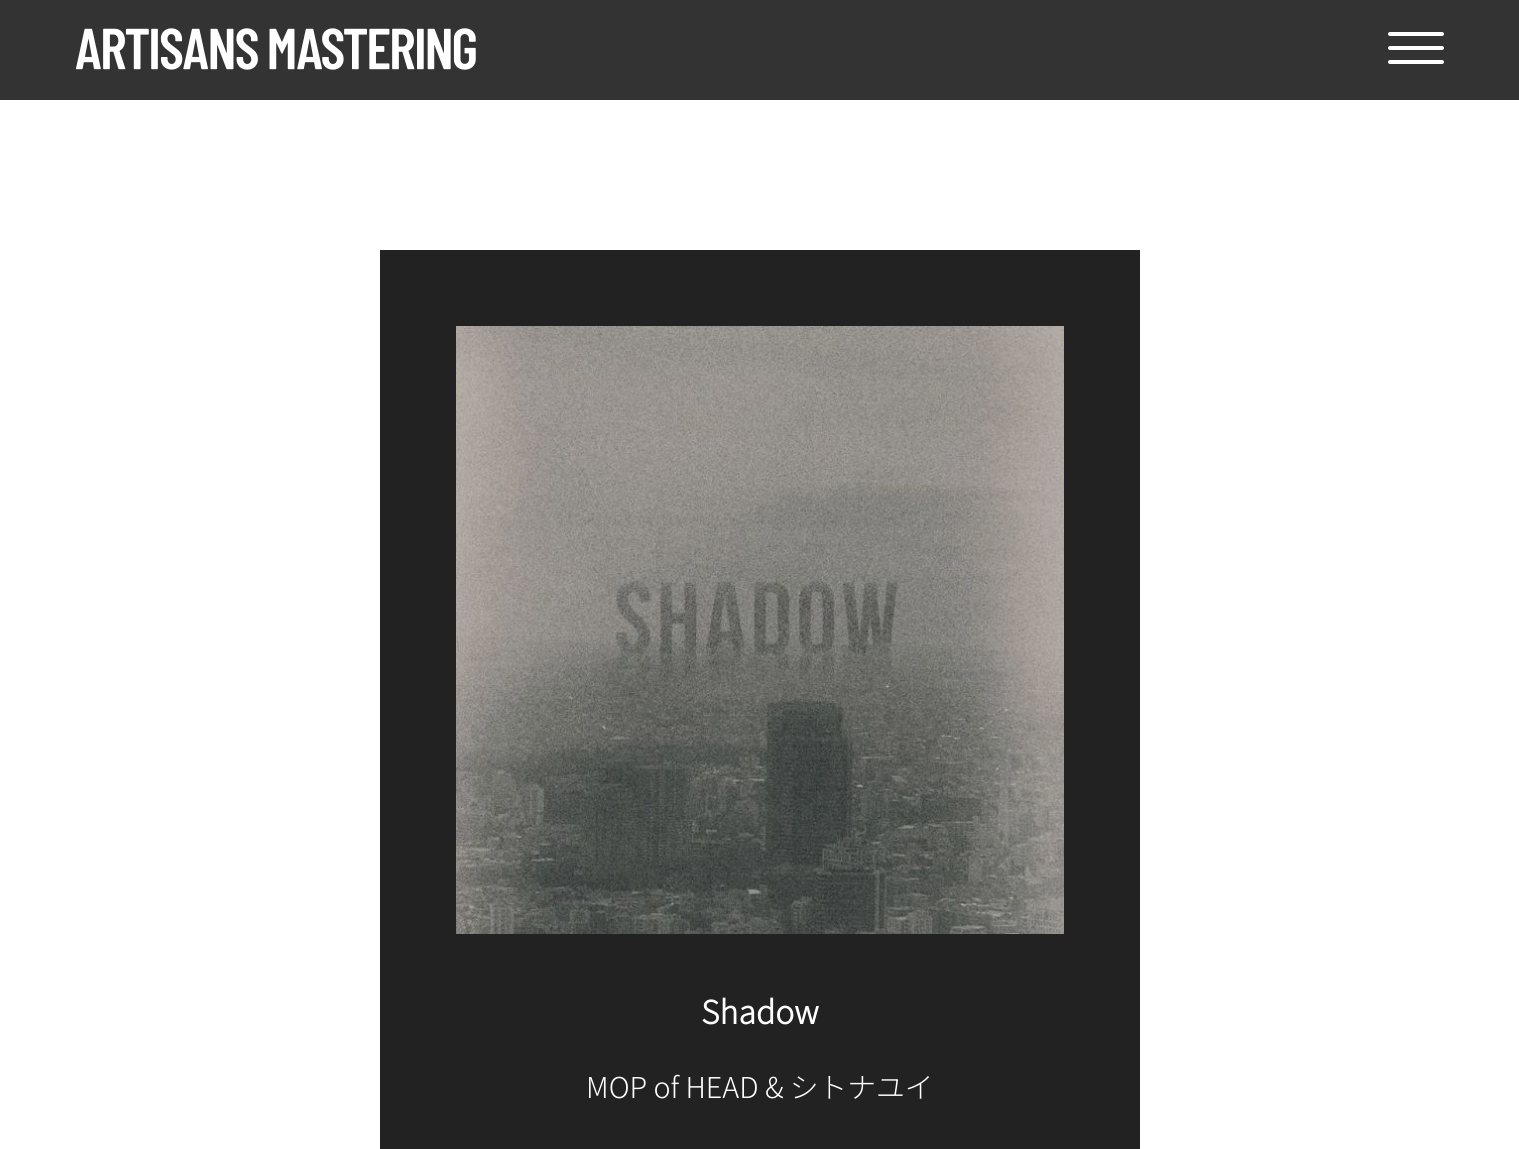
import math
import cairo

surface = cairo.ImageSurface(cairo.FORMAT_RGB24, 1519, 1149)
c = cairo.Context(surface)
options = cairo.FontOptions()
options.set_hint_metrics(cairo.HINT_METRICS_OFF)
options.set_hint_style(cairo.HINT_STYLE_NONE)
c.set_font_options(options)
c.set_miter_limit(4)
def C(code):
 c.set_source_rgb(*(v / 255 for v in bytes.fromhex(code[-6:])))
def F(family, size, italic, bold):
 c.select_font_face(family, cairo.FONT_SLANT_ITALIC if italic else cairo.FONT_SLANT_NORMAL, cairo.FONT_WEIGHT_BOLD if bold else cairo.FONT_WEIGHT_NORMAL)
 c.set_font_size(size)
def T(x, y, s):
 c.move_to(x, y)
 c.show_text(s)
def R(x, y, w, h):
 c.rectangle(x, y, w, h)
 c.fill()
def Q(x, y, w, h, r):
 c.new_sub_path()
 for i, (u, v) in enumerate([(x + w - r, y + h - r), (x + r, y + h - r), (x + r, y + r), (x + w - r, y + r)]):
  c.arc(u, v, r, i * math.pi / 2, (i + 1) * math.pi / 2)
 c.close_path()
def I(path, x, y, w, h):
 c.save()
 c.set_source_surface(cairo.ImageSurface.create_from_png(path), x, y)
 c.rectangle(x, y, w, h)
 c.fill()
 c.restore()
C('ffffff')
c.paint()
C('333333')
R(0,0,1519,100)
I('1.png',76,28,400,42)
C('ffffff')
Q(1388,46,56,4,2)
c.fill()
Q(1388,32,56,4,2)
c.fill()
Q(1388,60,56,4,2)
c.fill()
C('222222')
R(380,250,760,899)
I('2.png',456,326,608,608)
F('Noto Sans JP',32,0,1)
C('ffffff')
T(701,1024,'Shadow')
F('Noto Sans JP Thin',28.75,0,0)
T(586,1098,'MOP of HEAD & シトナユイ')
surface.write_to_png('o.png')
